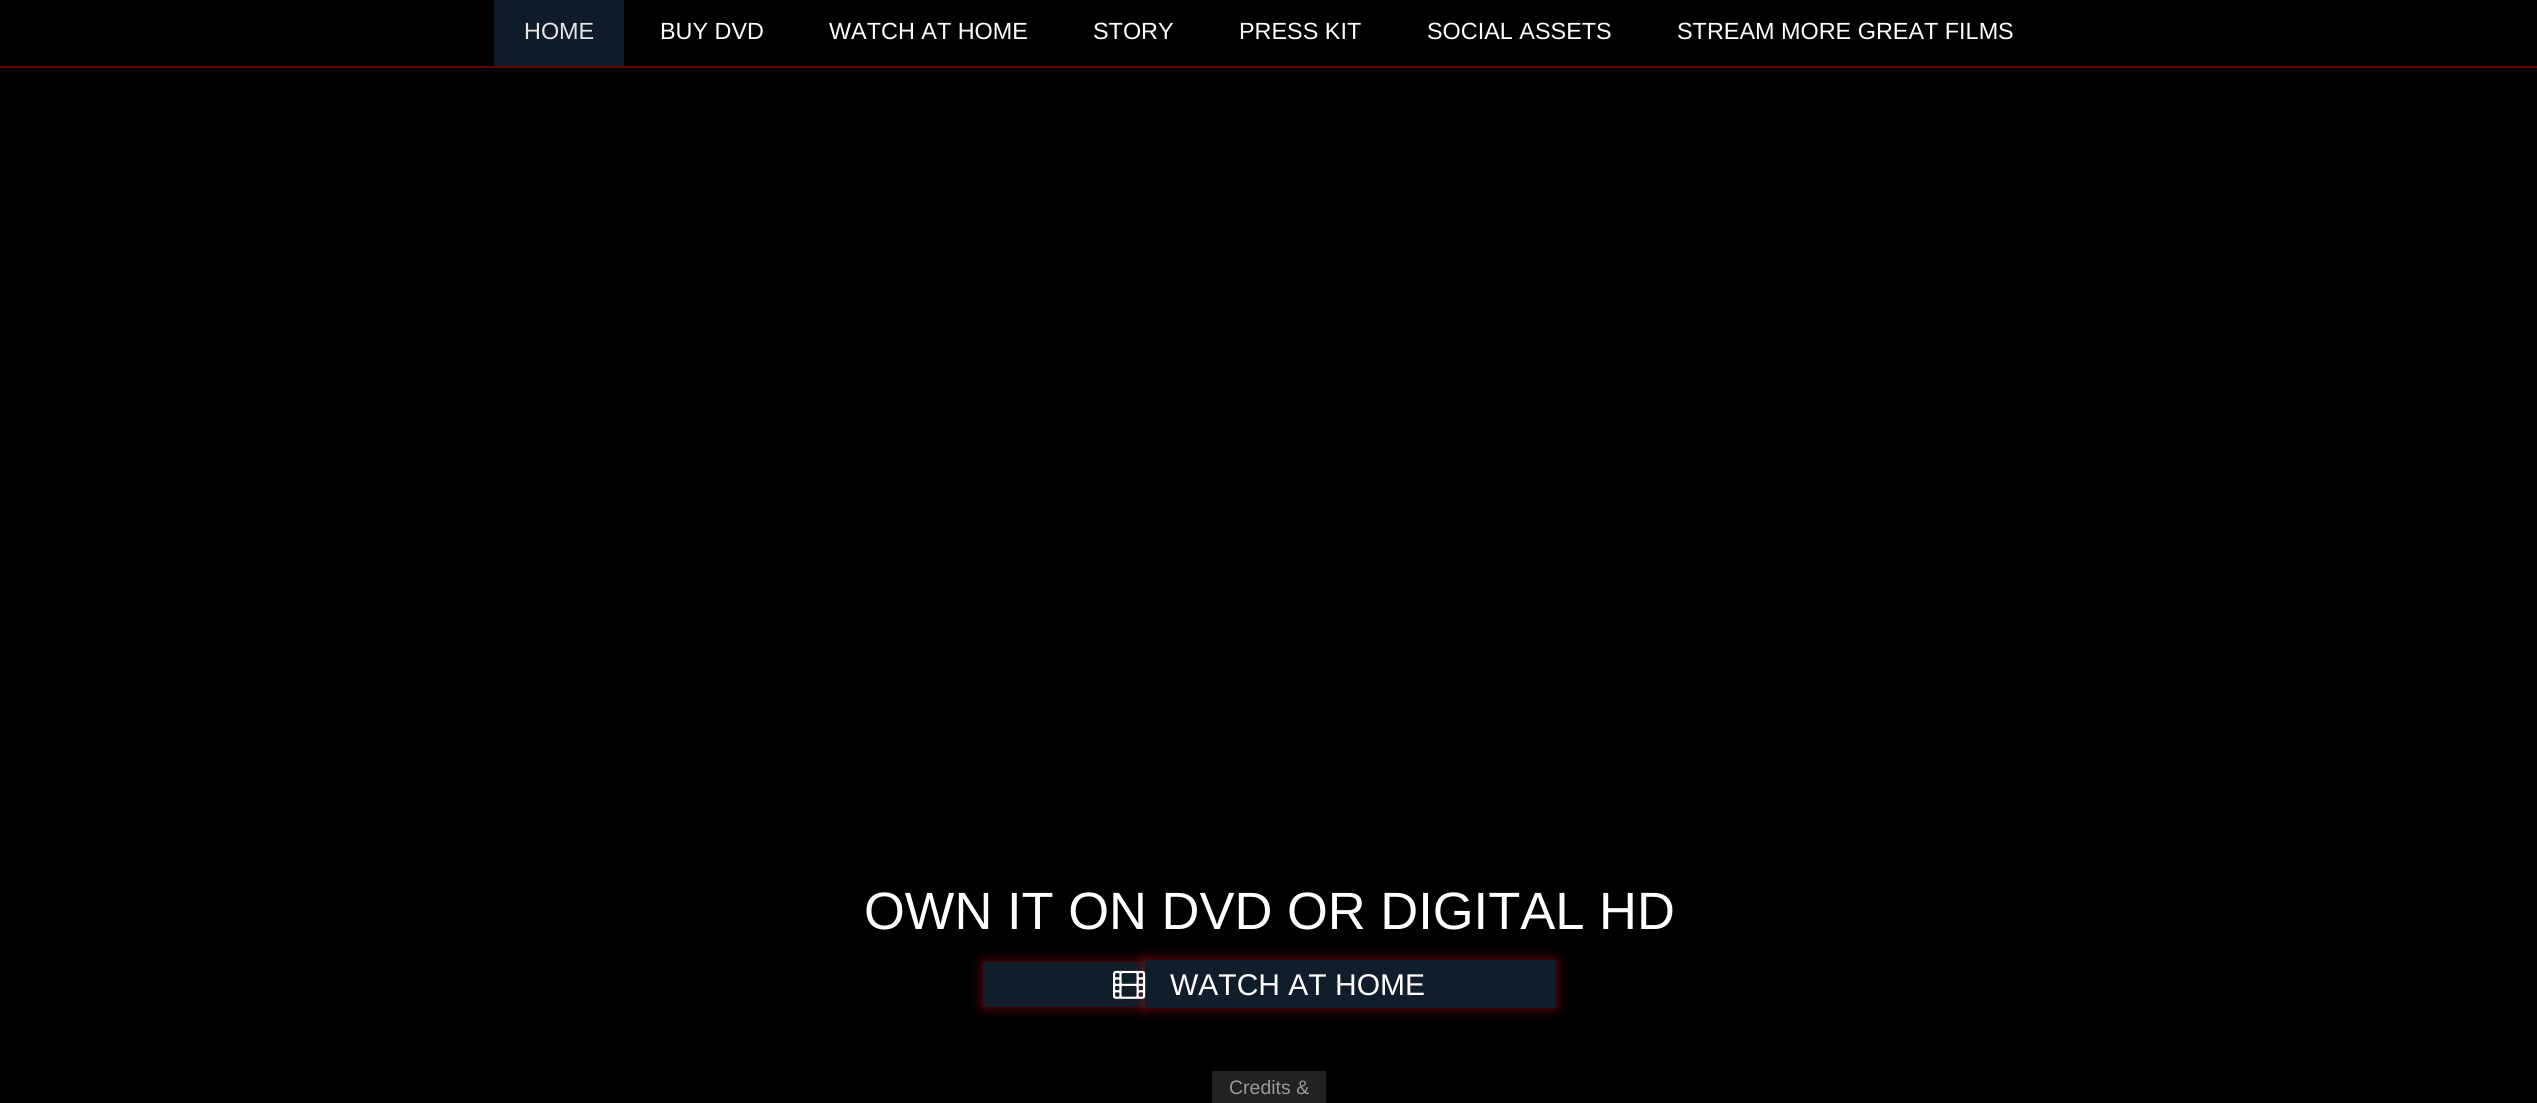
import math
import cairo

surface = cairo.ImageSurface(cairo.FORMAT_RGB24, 2537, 1103)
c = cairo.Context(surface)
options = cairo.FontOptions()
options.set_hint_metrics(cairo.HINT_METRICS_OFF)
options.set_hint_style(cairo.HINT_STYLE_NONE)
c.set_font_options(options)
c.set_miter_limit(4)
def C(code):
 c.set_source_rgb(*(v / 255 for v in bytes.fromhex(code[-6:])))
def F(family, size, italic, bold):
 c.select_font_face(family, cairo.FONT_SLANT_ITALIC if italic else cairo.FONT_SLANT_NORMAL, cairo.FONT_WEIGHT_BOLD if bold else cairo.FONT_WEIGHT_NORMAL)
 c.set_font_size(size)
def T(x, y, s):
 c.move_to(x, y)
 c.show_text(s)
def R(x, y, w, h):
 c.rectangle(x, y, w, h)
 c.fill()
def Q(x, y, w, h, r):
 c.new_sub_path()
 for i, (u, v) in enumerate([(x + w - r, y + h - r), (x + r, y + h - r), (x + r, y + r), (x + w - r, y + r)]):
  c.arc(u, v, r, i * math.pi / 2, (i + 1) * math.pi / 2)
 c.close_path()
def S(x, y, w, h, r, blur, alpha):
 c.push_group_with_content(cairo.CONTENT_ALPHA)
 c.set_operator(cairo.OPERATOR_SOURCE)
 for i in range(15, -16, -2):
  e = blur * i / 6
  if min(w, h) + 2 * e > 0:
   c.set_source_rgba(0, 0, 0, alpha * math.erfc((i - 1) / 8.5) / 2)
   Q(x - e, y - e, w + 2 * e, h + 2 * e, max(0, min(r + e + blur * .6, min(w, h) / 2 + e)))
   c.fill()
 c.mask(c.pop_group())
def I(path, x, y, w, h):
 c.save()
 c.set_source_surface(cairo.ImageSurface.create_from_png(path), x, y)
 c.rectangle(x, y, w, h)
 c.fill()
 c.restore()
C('000000')
c.paint()
C('650508')
R(0,66,2537,2)
C('0e1b28')
R(494,0,130,66)
F('Liberation Sans',23.4,0,0)
C('e6e6e6')
T(524,39,'HOME')
C('ffffff')
T(660,39,'BUY DVD')
T(829,39,'WATCH AT HOME')
T(1093,39,'STORY')
T(1239,39,'PRESS KIT')
T(1427,39,'SOCIAL ASSETS')
T(1677,39,'STREAM MORE GREAT FILMS')
F('Liberation Sans',52.5,0,0)
T(864,929,'OWN IT ON DVD OR DIGITAL HD')
C('c90a10')
S(983,962,162,45,0,6,.6)
C('101d2b')
R(983,962,162,45)
C('c90a10')
S(1145,960,411,48,0,6,.6)
C('101d2b')
R(1145,960,411,48)
I('1.png',1113,970,33,29)
F('Liberation Sans',30,0,0)
C('ffffff')
T(1170,995,'WATCH AT HOME')
C('222222')
R(1212,1071,114,32)
F('Liberation Sans',19.5,0,0)
C('999999')
T(1229,1094,'Credits &')
surface.write_to_png('o.png')
